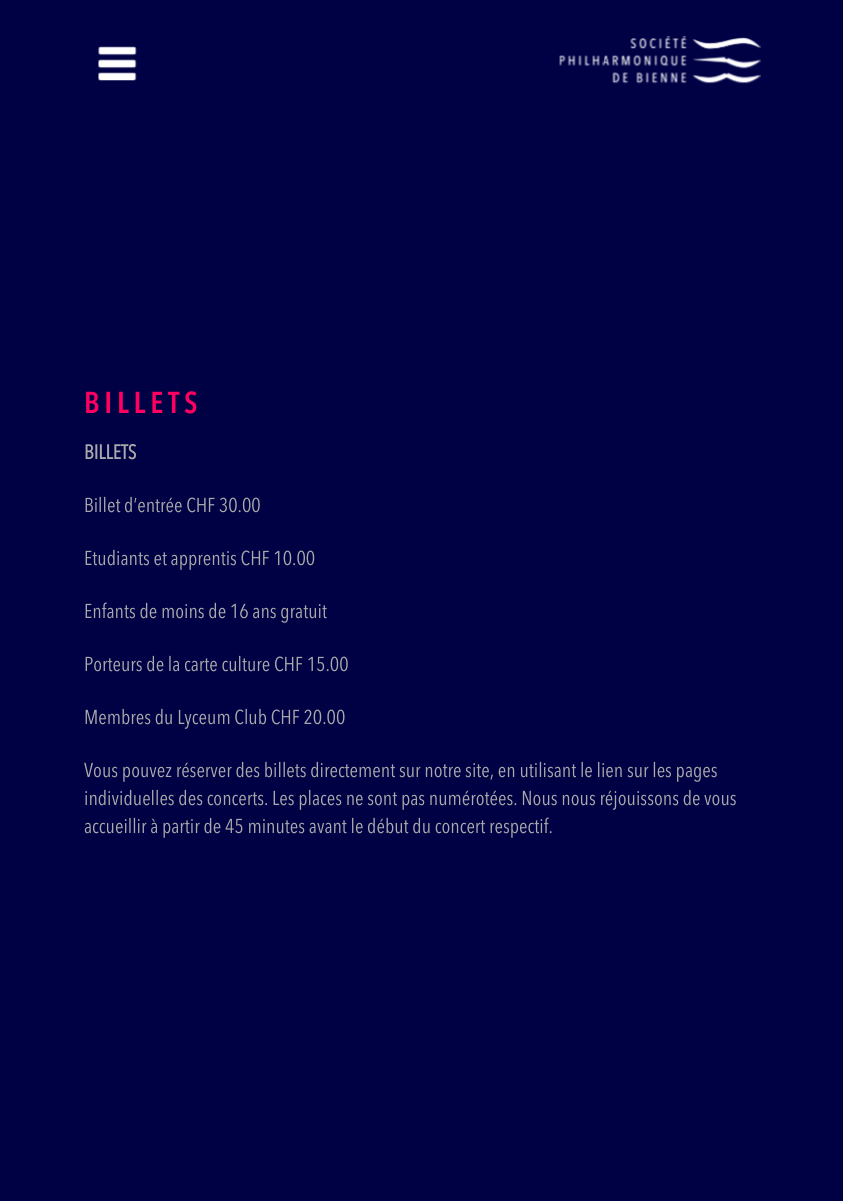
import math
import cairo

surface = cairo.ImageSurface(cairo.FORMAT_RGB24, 843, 1201)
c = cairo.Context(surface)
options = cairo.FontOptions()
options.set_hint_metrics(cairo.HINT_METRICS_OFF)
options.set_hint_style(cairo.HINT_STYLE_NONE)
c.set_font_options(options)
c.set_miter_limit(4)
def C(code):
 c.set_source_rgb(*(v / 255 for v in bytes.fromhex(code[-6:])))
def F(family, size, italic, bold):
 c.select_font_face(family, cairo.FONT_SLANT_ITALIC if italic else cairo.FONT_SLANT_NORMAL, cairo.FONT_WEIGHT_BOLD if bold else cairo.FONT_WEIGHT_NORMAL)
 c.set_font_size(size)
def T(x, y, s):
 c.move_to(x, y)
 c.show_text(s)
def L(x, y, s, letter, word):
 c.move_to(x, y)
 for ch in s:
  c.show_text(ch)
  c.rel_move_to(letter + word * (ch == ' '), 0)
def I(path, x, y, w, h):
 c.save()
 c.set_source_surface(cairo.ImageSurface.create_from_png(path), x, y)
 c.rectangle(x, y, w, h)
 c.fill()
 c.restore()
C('000045')
c.paint()
I('1.png',98,46,39,35)
I('2.png',559,36,202,48)
F('Avenir Next SemiBold',30,0,0)
C('ff0061')
L(84,413,'BILLETS',4.75,0)
F('Avenir Next',20,0,1)
C('aaaaaa')
T(84,459,'BILLETS')
F('Avenir Next',20,0,0)
T(84,512,'Billet d’entrée CHF 30.00')
T(84,565,'Etudiants et apprentis CHF 10.00')
T(84,618,'Enfants de moins de 16 ans gratuit')
T(84,671,'Porteurs de la carte culture CHF 15.00')
T(84,724,'Membres du Lyceum Club CHF 20.00')
T(84,777,'Vous pouvez réserver des billets directement sur notre site, en utilisant le lien sur les pages')
T(84,805,'individuelles des concerts. Les places ne sont pas numérotées. Nous nous réjouissons de vous')
T(84,833,'accueillir à partir de 45 minutes avant le début du concert respectif.')
surface.write_to_png('o.png')
